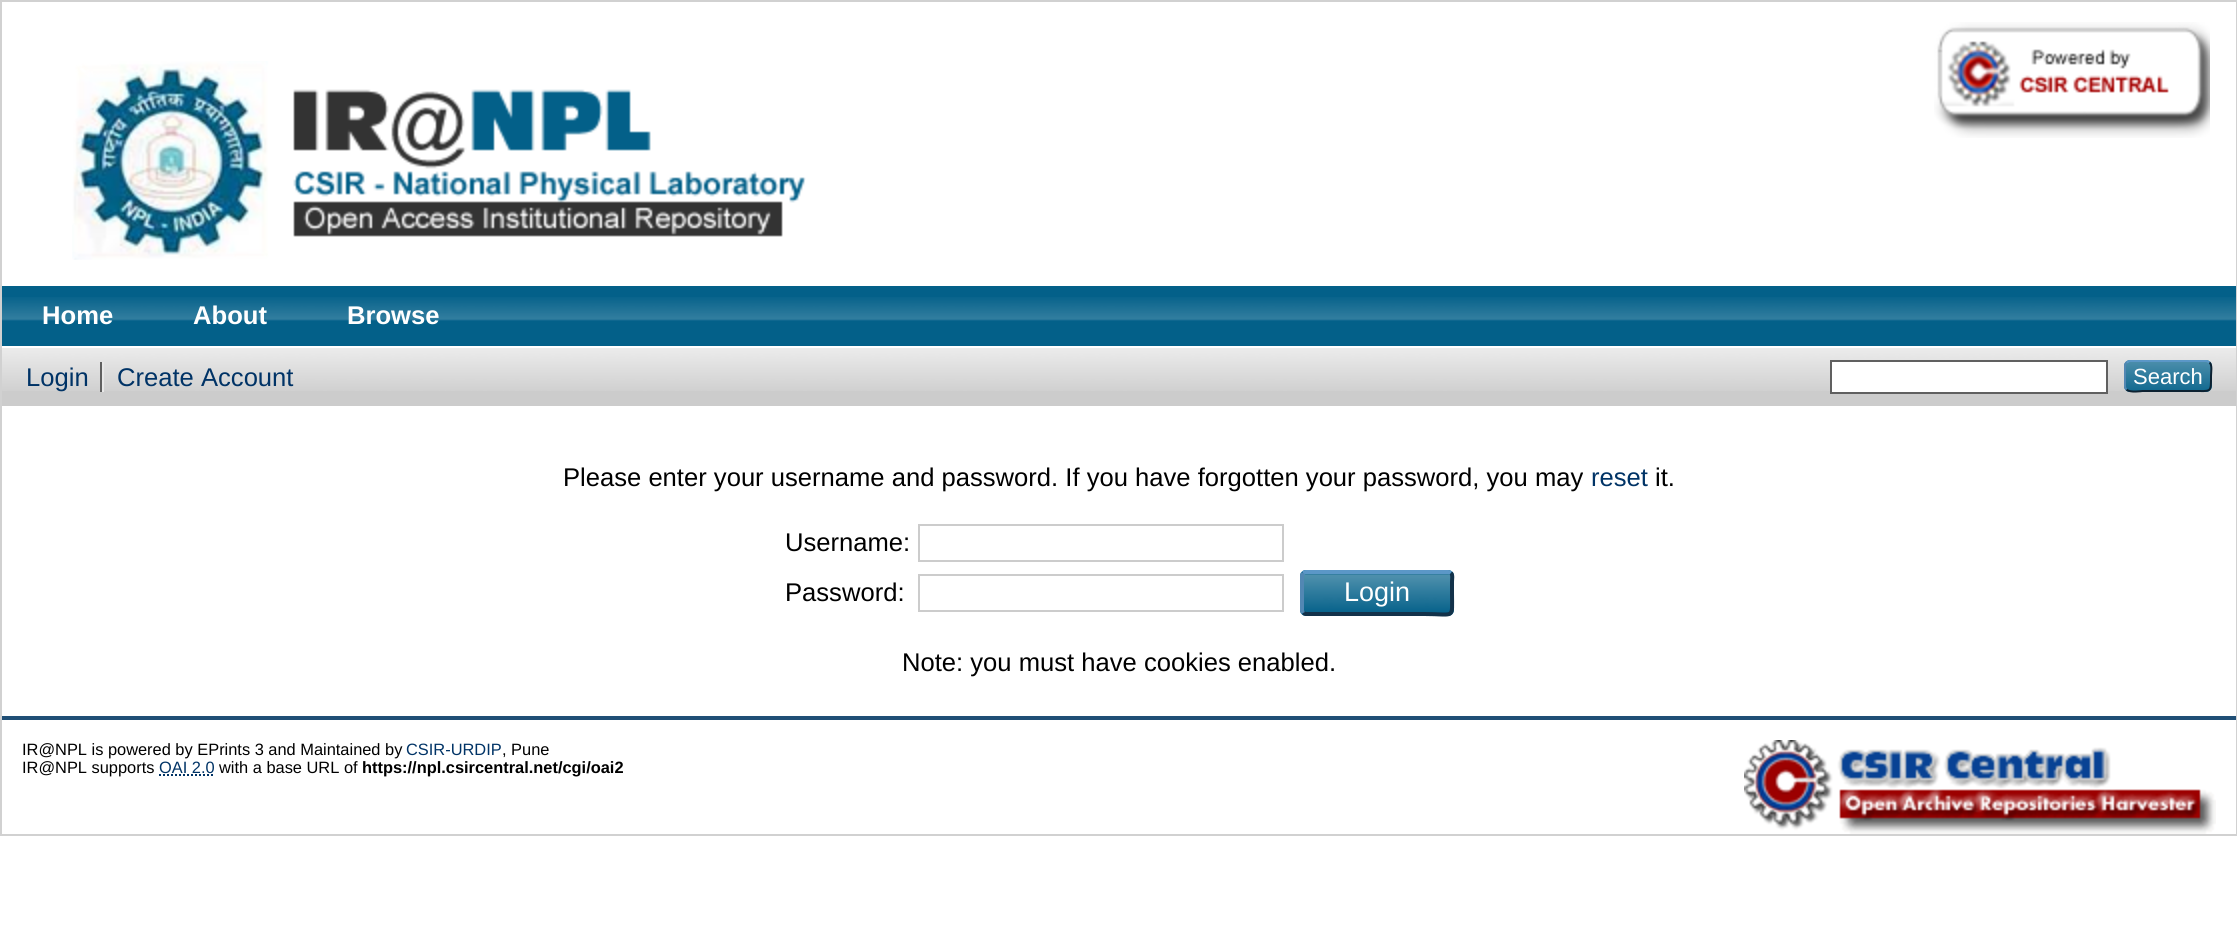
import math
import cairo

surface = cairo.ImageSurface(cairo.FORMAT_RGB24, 2237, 946)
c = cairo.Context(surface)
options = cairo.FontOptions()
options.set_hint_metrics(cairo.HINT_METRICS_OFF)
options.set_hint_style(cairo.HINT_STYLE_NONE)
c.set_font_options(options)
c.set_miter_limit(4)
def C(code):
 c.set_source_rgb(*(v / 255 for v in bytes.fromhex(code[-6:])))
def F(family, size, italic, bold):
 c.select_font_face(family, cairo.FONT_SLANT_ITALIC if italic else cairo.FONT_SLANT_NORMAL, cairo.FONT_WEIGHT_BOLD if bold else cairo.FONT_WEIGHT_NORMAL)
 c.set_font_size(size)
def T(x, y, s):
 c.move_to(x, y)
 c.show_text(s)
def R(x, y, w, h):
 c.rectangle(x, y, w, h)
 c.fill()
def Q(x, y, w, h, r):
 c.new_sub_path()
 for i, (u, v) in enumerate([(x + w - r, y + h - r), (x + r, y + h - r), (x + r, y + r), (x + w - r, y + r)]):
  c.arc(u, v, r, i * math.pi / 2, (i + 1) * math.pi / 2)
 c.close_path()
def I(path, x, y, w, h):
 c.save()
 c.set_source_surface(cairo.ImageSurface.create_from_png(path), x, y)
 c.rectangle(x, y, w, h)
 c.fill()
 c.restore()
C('ffffff')
c.paint()
C('d1d1d1')
R(0,0,2237,2)
R(2236,0,1,836)
R(0,834,2237,2)
R(0,0,2,836)
I('1.png',72,61,734,199)
I('2.png',1934,22,276,116)
C('036089')
R(2,286,2234,60)
I('3.png',2,297,2234,24)
F('Liberation Sans',25.6,0,1)
C('ffffff')
T(42,324,'Home')
T(193,324,'About')
T(347,324,'Browse')
C('cccccc')
R(2,348,2234,58)
I('4.png',2,348,2234,43)
F('Liberation Sans',25.6,0,0)
C('003366')
T(26,386,'Login')
C('606060')
R(100,362,2,30)
C('003366')
T(117,386,'Create Account')
C('e8e8e8')
R(102,362,2,30)
C('ffffff')
c.rectangle(1831,361,276,32)
c.fill_preserve()
C('606060')
c.stroke()
C('036089')
Q(2124,360,88,32,6)
c.fill()
I('5.png',2124,360,88,32)
c.new_path()
c.move_to(2126.5,362.5)
c.line_to(2129.5,361)
c.line_to(2206.5,361)
c.line_to(2209.5,362.5)
C('5b97c7')
c.stroke()
c.new_path()
c.move_to(2209.5,362.5)
c.curve_to(2212.5,365,2211,372.5,2211,376)
c.curve_to(2211,393,2211.5,391,2193.5,391)
c.line_to(2142.5,391)
c.curve_to(2141.5,391,2130,393,2126.5,389.5)
C('0d2131')
c.stroke()
c.new_path()
c.move_to(2126.5,389.5)
c.curve_to(2125.5,388.5,2125,387.5,2125,386)
c.line_to(2125,366)
c.curve_to(2125,364.5,2125.5,363.5,2126.5,362.5)
C('5287b3')
c.stroke()
F('Liberation Sans',22,0,0)
C('ffffff')
T(2133,384,'Search')
F('Liberation Sans',25.6,0,0)
C('000000')
T(563,486,'Please enter your username and password. If you have forgotten your password, you may')
C('003366')
T(1591,486,'reset')
C('000000')
T(1655,486,'it.')
T(785,551,'Username:')
c.rectangle(919,525,364,36)
C('cccccc')
c.stroke()
C('000000')
T(785,601,'Password:')
c.rectangle(919,575,364,36)
C('cccccc')
c.stroke()
C('036089')
Q(1300,570,154,46,6)
c.fill()
I('6.png',1300,573,154,39)
c.new_path()
c.move_to(1303,573)
c.curve_to(1304,572.5,1305,572,1306,572)
c.line_to(1448,572)
c.curve_to(1449,572,1450,572.5,1451,573)
C('5b97c7')
c.set_line_width(4)
c.stroke()
c.new_path()
c.move_to(1451,573)
c.curve_to(1453,575,1452,579.5,1452,581.5)
c.line_to(1452,593)
c.curve_to(1452,620,1455.5,614,1424.5,614)
c.line_to(1306,614)
c.line_to(1303,613)
C('13324a')
c.stroke()
c.new_path()
c.move_to(1303,613)
c.curve_to(1302.5,612,1302,611,1302,610)
c.line_to(1302,576)
c.curve_to(1302,575,1302.5,574,1303,573)
C('5287b3')
c.stroke()
F('Liberation Sans',27,0,0)
C('ffffff')
T(1344,601,'Login')
F('Liberation Sans',25.6,0,0)
C('000000')
T(902,671,'Note: you must have cookies enabled.')
C('204f76')
R(2,716,2234,4)
F('Liberation Sans',16.4,0,0)
C('000000')
T(22,755,'IR@NPL is powered by EPrints 3 and Maintained by')
C('003366')
T(406,755,'CSIR-URDIP')
C('000000')
T(502,755,', Pune')
I('7.png',1744,740,472,94)
T(22,773,'IR@NPL supports')
C('003366')
T(159,773,'OAI 2.0')
c.new_path()
c.move_to(159,775)
c.line_to(214.5,775)
c.set_line_width(2)
c.set_dash([2,2])
c.stroke()
C('000000')
T(219,773,'with a base URL of')
F('Liberation Sans',16.4,0,1)
T(362,773,'https://npl.csircentral.net/cgi/oai2')
surface.write_to_png('o.png')
